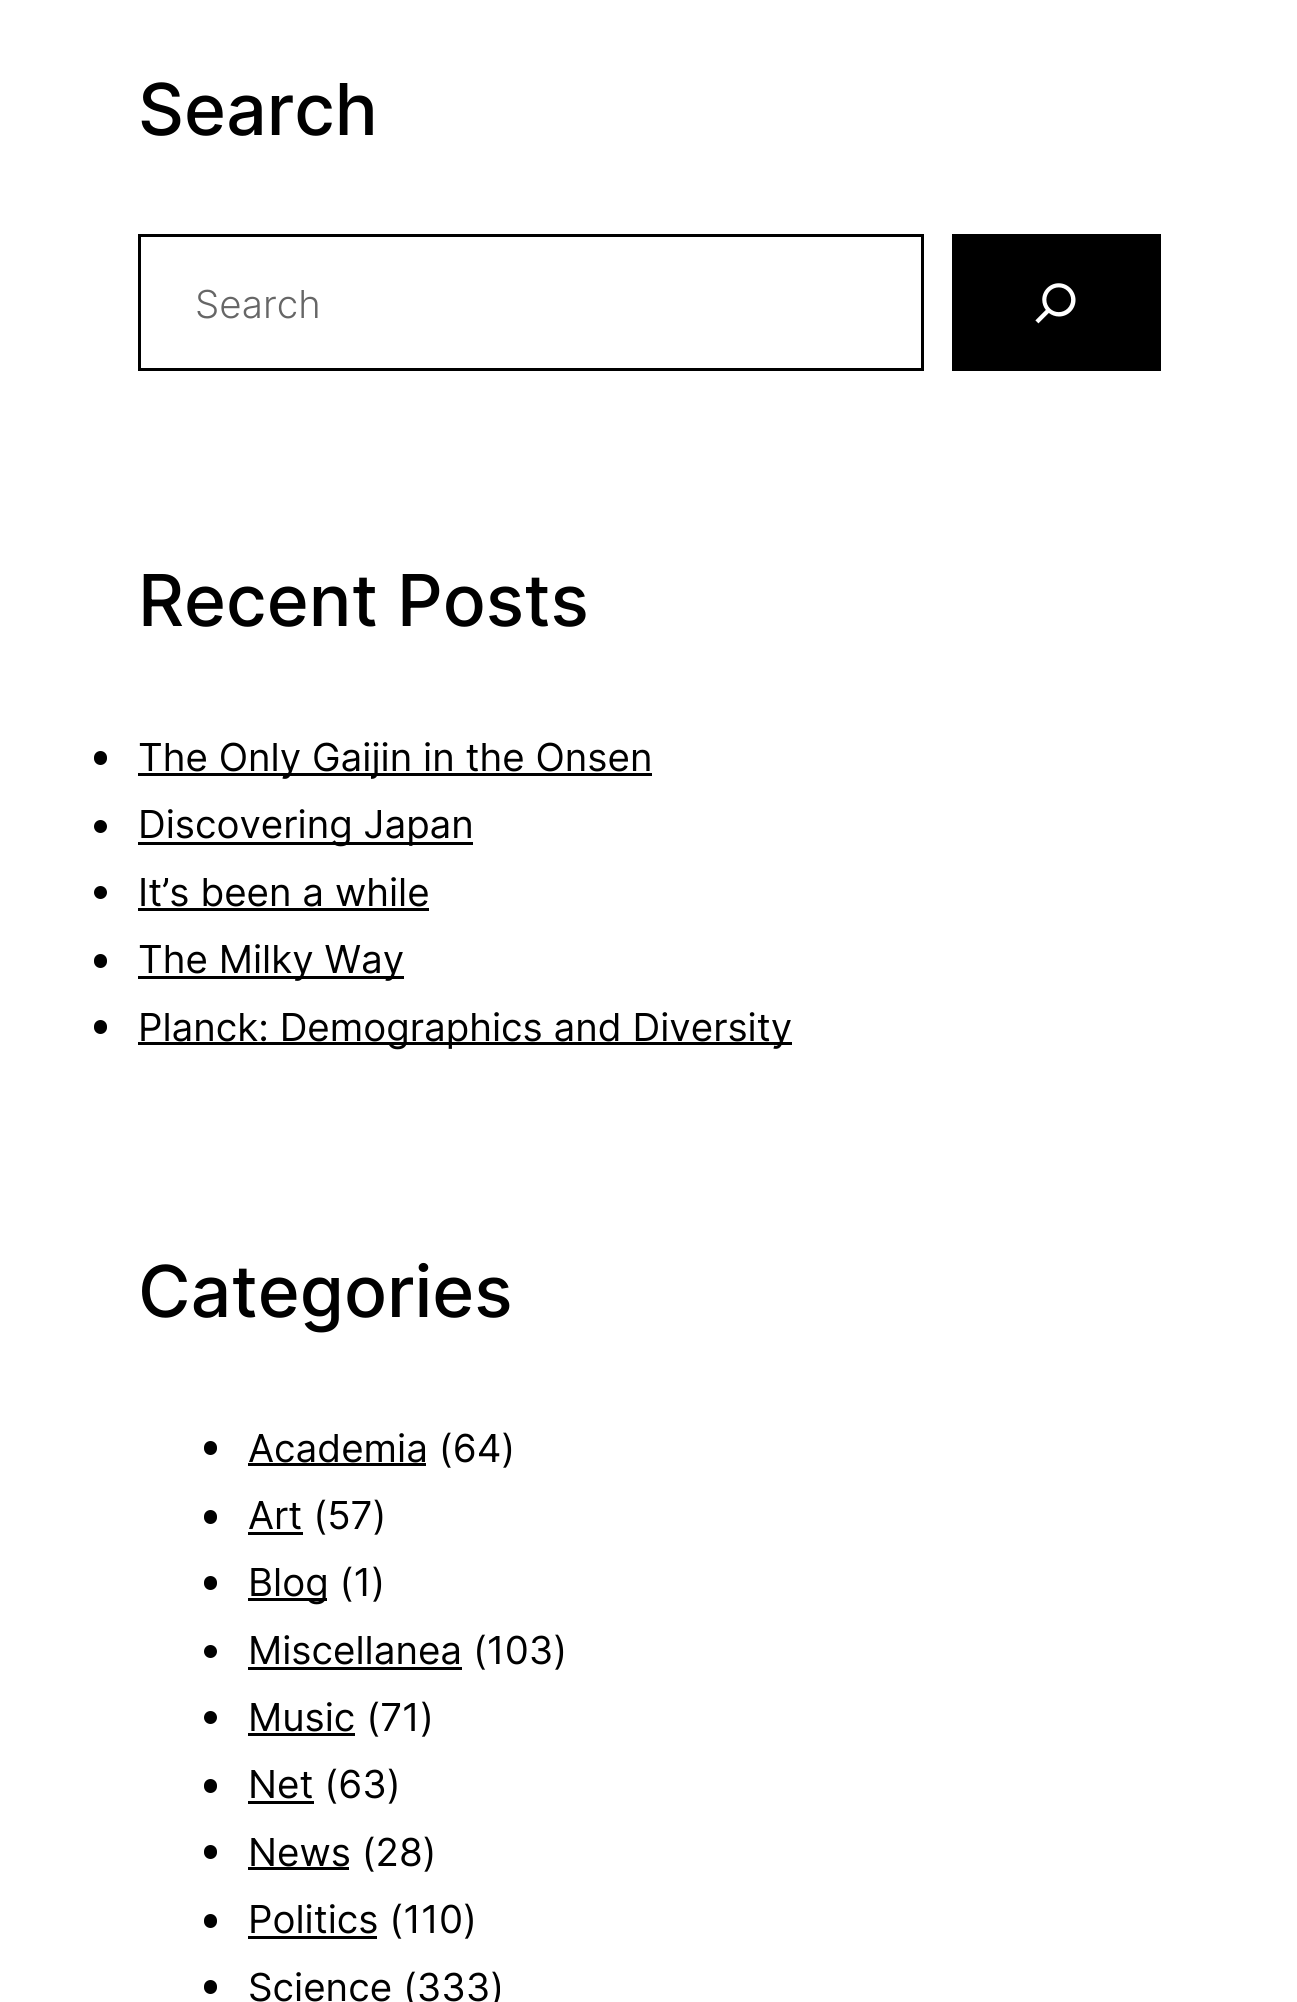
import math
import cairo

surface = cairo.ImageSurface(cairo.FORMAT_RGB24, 1297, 2002)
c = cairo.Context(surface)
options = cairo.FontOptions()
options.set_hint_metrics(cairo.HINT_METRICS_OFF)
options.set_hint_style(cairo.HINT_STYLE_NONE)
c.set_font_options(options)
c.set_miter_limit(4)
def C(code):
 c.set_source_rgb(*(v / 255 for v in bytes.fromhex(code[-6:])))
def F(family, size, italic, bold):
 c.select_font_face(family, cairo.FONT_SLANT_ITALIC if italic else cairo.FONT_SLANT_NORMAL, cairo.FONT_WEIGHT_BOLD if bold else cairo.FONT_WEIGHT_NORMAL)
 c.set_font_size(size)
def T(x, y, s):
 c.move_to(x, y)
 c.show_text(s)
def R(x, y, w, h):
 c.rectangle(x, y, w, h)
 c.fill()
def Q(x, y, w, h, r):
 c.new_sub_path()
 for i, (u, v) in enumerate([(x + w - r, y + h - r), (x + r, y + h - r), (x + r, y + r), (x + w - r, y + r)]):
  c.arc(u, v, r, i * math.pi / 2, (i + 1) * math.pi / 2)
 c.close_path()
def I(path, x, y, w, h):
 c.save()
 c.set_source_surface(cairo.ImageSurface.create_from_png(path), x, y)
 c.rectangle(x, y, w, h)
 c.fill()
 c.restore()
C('ffffff')
c.paint()
F('Inter Medium',71.5,0,0)
C('000000')
T(138,135,'Search')
c.rectangle(139.5,235.5,783,134)
c.set_line_width(3)
c.stroke()
F('Inter Light',38.5,0,0)
C('666666')
T(195,318,'Search')
C('000000')
R(952,234,209,137)
I('1.png',1035,283,41,41)
F('Inter Medium',71.5,0,0)
T(138,626,'Recent Posts')
Q(94,751,13,14,6.5)
c.fill()
R(138,773,514,3)
F('Inter',38.5,0,0)
T(138,771,'The Only Gaijin in the Onsen')
c.new_path()
c.arc(100.5,826.5,6.5,0,2 * math.pi)
c.fill()
R(138,842,335,3)
T(138,838,'Discovering Japan')
c.new_path()
c.arc(100.5,892.5,6.5,0,2 * math.pi)
c.fill()
T(138,906,'It’s been a while')
R(138,908,291,3)
Q(94,954,13,14,6.5)
c.fill()
R(138,976,266,3)
T(138,973,'The Milky Way')
Q(94,1020,13,14,6.5)
c.fill()
R(138,1042,654,3)
T(138,1041,'Planck: Demographics and Diversity')
F('Inter Medium',71.5,0,0)
T(138,1317,'Categories')
Q(204,1441,13,14,6.5)
c.fill()
R(248,1463,178,3)
F('Inter',38.5,0,0)
T(248,1462,'Academia (64)')
Q(204,1510,13,14,6.5)
c.fill()
R(248,1532,55,3)
T(248,1529,'Art (57)')
Q(204,1576,13,14,6.5)
c.fill()
R(248,1598,79,3)
T(248,1596,'Blog (1)')
c.new_path()
c.arc(210.5,1651.5,6.5,0,2 * math.pi)
c.fill()
R(248,1667,214,3)
T(248,1664,'Miscellanea (103)')
c.new_path()
c.arc(210.5,1717.5,6.5,0,2 * math.pi)
c.fill()
R(248,1733,107,3)
T(248,1731,'Music (71)')
Q(204,1779,13,14,6.5)
c.fill()
R(248,1801,66,3)
T(248,1798,'Net (63)')
Q(204,1845,13,14,6.5)
c.fill()
R(248,1867,101,3)
T(248,1866,'News (28)')
Q(204,1914,13,14,6.5)
c.fill()
R(248,1936,129,3)
T(248,1933,'Politics (110)')
Q(204,1980,13,14,6.5)
c.fill()
T(248,2001,'Science (333)')
surface.write_to_png('o.png')
